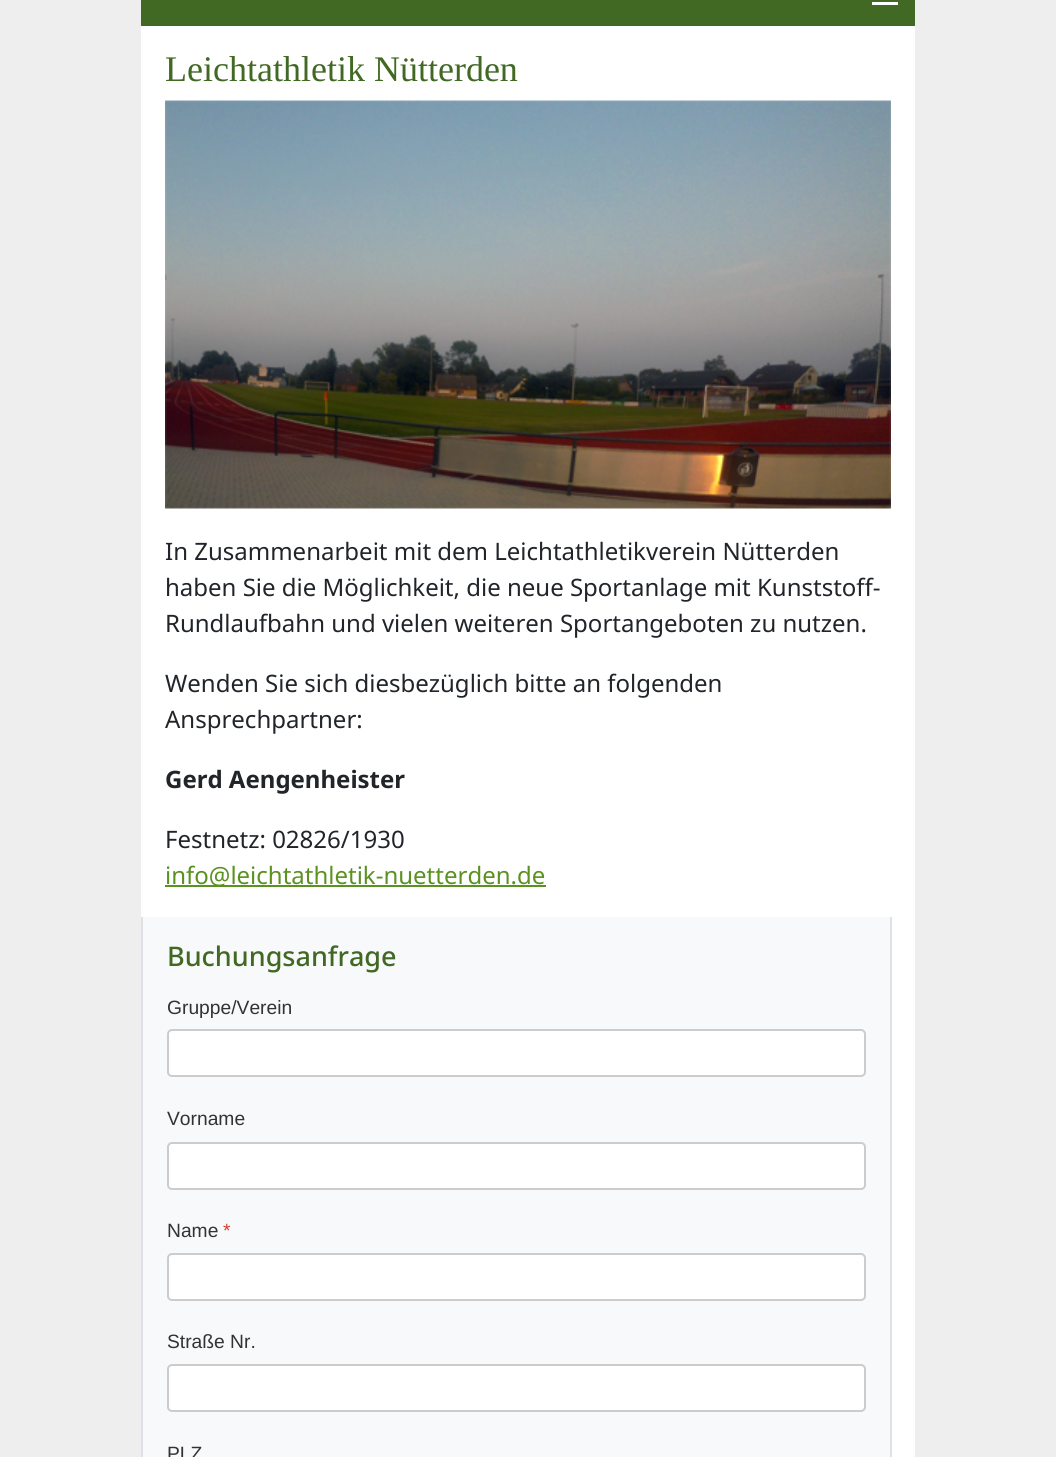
import math
import cairo

surface = cairo.ImageSurface(cairo.FORMAT_RGB24, 1056, 1457)
c = cairo.Context(surface)
options = cairo.FontOptions()
options.set_hint_metrics(cairo.HINT_METRICS_OFF)
options.set_hint_style(cairo.HINT_STYLE_NONE)
c.set_font_options(options)
c.set_miter_limit(4)
def C(code):
 c.set_source_rgb(*(v / 255 for v in bytes.fromhex(code[-6:])))
def F(family, size, italic, bold):
 c.select_font_face(family, cairo.FONT_SLANT_ITALIC if italic else cairo.FONT_SLANT_NORMAL, cairo.FONT_WEIGHT_BOLD if bold else cairo.FONT_WEIGHT_NORMAL)
 c.set_font_size(size)
def T(x, y, s):
 c.move_to(x, y)
 c.show_text(s)
def R(x, y, w, h):
 c.rectangle(x, y, w, h)
 c.fill()
def Q(x, y, w, h, r):
 c.new_sub_path()
 for i, (u, v) in enumerate([(x + w - r, y + h - r), (x + r, y + h - r), (x + r, y + r), (x + w - r, y + r)]):
  c.arc(u, v, r, i * math.pi / 2, (i + 1) * math.pi / 2)
 c.close_path()
def I(path, x, y, w, h):
 c.save()
 c.set_source_surface(cairo.ImageSurface.create_from_png(path), x, y)
 c.rectangle(x, y, w, h)
 c.fill()
 c.restore()
C('eeeeee')
c.paint()
C('416923')
R(141,0,774,26)
C('ffffff')
R(872,2,26,3)
R(141,26,774,1431)
F('Liberation Serif',36,0,0)
C('416923')
T(165,81,'Leichtathletik Nütterden')
I('1.png',165,100,726,409)
F('Noto Sans',24,0,0)
C('212529')
T(165,560,'In Zusammenarbeit mit dem Leichtathletikverein Nütterden')
T(165,596,'haben Sie die Möglichkeit, die neue Sportanlage mit Kunststoff-')
T(165,632,'Rundlaufbahn und vielen weiteren Sportangeboten zu nutzen.')
T(165,692,'Wenden Sie sich diesbezüglich bitte an folgenden')
T(165,728,'Ansprechpartner:')
F('Noto Sans',24,0,1)
T(165,788,'Gerd Aengenheister')
F('Noto Sans',24,0,0)
T(165,848,'Festnetz: 02826/1930')
C('5a9220')
R(165,885,381,2)
T(165,884,'info@leichtathletik-nuetterden.de')
C('f8f9fa')
R(143,917,747,540)
C('dee2e6')
R(890,917,2,540)
R(141,917,2,540)
F('Noto Sans Medium',27,0,0)
C('416923')
T(167,966,'Buchungsanfrage')
F('Liberation Sans',19.25,0,0)
C('333333')
T(167,1014,'Gruppe/Verein')
C('ffffff')
Q(168,1030,697,46,4)
c.fill_preserve()
C('cccccc')
c.stroke()
C('333333')
T(167,1125,'Vorname')
C('ffffff')
Q(168,1143,697,46,4)
c.fill_preserve()
C('cccccc')
c.stroke()
C('333333')
T(167,1237,'Name')
C('d73e31')
T(223,1237,'*')
C('ffffff')
Q(168,1254,697,46,4)
c.fill_preserve()
C('cccccc')
c.stroke()
C('333333')
T(167,1348,'Straße Nr.')
C('ffffff')
Q(168,1365,697,46,4)
c.fill_preserve()
C('cccccc')
c.stroke()
C('333333')
T(167,1460,'PLZ')
surface.write_to_png('o.png')
